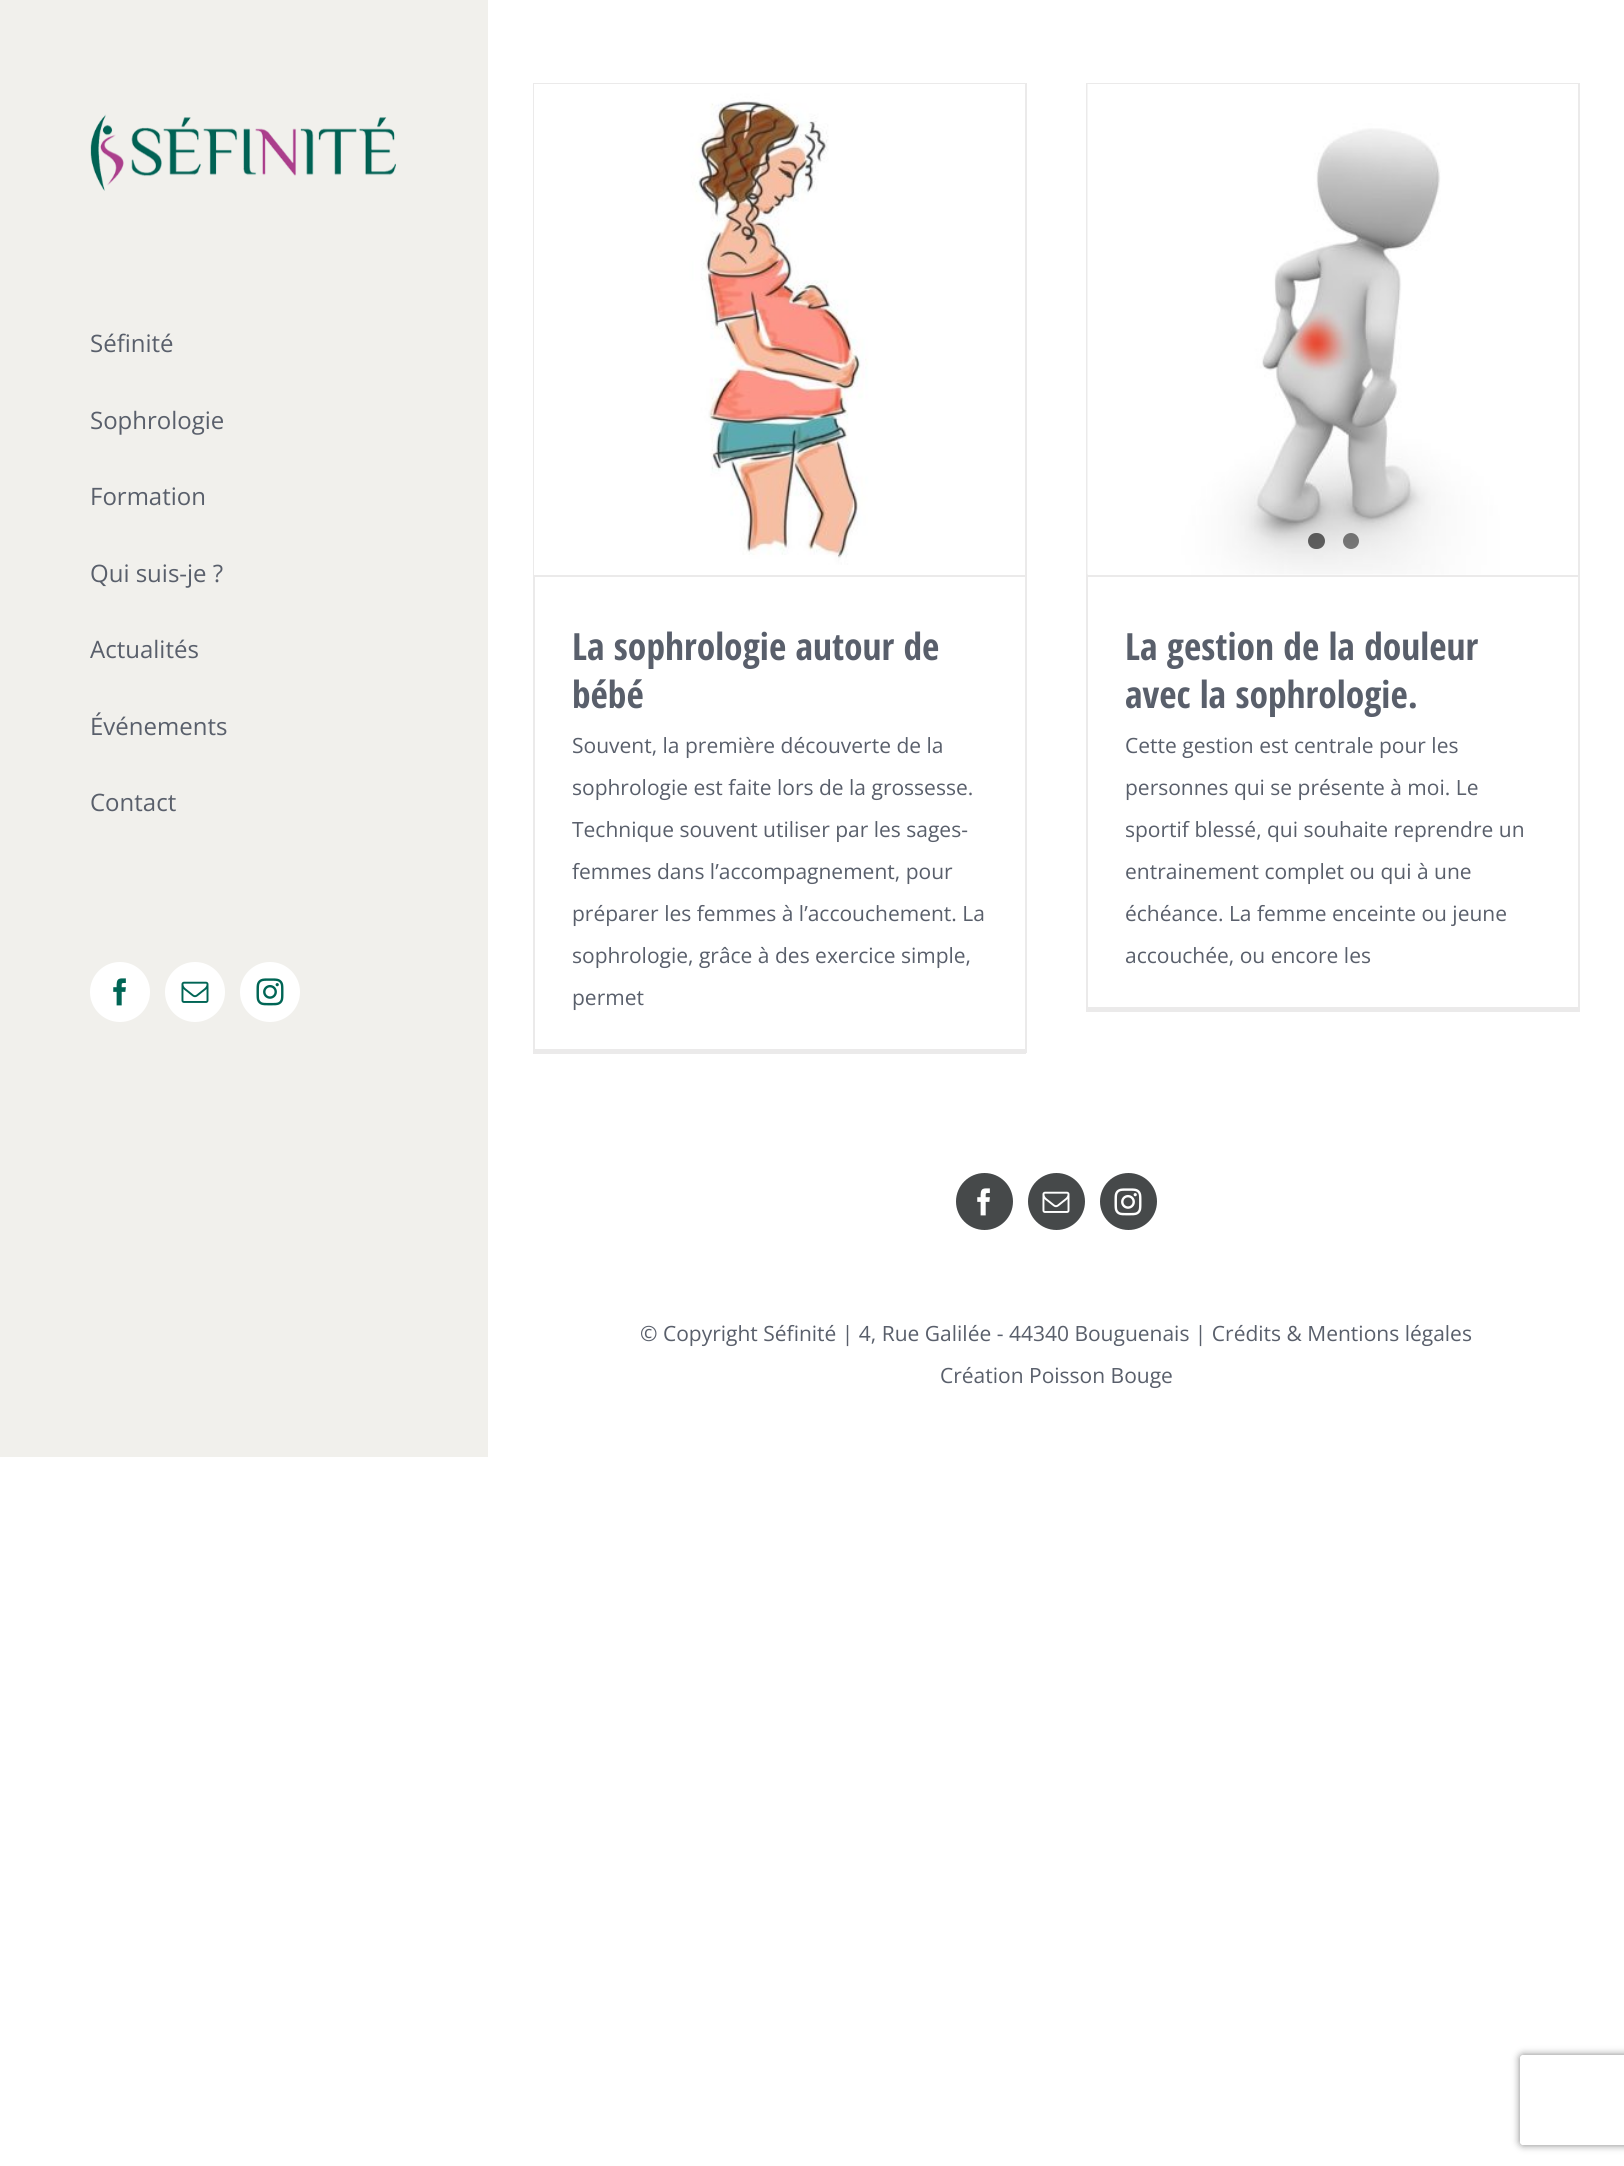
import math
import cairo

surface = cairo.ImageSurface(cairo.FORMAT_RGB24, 1624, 2166)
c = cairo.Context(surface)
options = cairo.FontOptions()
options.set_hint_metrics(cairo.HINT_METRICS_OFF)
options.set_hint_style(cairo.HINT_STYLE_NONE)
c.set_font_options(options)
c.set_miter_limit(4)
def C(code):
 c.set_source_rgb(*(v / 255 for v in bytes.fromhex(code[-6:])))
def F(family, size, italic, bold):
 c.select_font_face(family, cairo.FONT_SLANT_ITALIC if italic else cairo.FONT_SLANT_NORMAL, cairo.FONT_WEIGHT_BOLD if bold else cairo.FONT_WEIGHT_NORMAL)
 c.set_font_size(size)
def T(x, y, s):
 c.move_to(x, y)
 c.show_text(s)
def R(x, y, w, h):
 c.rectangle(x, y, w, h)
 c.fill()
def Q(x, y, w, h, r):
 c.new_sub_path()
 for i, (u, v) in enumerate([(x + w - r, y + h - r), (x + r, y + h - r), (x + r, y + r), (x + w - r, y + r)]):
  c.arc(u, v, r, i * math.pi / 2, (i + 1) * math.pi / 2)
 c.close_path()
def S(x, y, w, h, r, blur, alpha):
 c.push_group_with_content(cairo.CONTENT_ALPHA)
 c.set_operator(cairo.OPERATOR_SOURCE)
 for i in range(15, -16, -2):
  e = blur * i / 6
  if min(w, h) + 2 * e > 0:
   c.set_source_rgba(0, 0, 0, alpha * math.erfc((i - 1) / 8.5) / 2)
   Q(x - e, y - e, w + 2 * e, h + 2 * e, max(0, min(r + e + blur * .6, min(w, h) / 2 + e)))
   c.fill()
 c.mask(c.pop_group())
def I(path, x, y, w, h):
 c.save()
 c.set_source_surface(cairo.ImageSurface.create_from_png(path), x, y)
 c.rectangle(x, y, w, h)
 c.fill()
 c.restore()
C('ffffff')
c.paint()
C('f1f0ec')
R(0,0,488,1457)
I('1.png',90,114,306,77)
F('Open Sans',24,0,0)
C('595f6b')
T(90,352,'Séfinité')
T(90,429,'Sophrologie')
T(90,505,'Formation')
T(90,582,'Qui suis-je ?')
T(90,658,'Actualités')
T(90,735,'Événements')
T(90,811,'Contact')
C('ffffff')
c.new_path()
c.arc(120,992,29,0,2 * math.pi)
c.fill_preserve()
c.stroke()
I('2.png',113,978,13,28)
c.arc(195,992,29,0,2 * math.pi)
c.fill_preserve()
c.stroke()
I('3.png',181,981,28,22)
c.arc(270,992,29,0,2 * math.pi)
c.fill_preserve()
c.stroke()
I('4.png',256,978,28,28)
C('ebeaea')
R(533,83,493,1)
R(1025,83,2,970)
R(533,1049,493,5)
R(533,83,2,970)
R(534,575,491,2)
I('5.png',534,84,491,491)
F('Open Sans Condensed',37.5,0,1)
C('595f6b')
T(572,660,'La sophrologie autour de')
T(572,708,'bébé')
F('Open Sans',21,0,0)
T(572,753,'Souvent, la première découverte de la')
T(572,795,'sophrologie est faite lors de la grossesse.')
T(572,837,'Technique souvent utiliser par les sages-')
T(572,879,'femmes dans l’accompagnement, pour')
T(572,921,'préparer les femmes à l’accouchement. La')
T(572,963,'sophrologie, grâce à des exercice simple,')
T(572,1005,'permet')
C('ebeaea')
R(1086,83,494,1)
R(1578,83,2,928)
R(1086,1007,494,5)
R(1086,83,2,928)
R(1088,575,490,2)
I('6.png',1087,84,491,491)
c.set_source_rgba(0,0,0,0.6)
Q(1308,533,17,16,8)
c.fill()
c.set_source_rgba(0,0,0,0.5)
c.arc(1351,541,8,0,2 * math.pi)
c.fill()
F('Open Sans Condensed',37.5,0,1)
C('595f6b')
T(1125,660,'La gestion de la douleur')
T(1125,708,'avec la sophrologie.')
F('Open Sans',21,0,0)
T(1125,753,'Cette gestion est centrale pour les')
T(1125,795,'personnes qui se présente à moi. Le')
T(1125,837,'sportif blessé, qui souhaite reprendre un')
T(1125,879,'entrainement complet ou qui à une')
T(1125,921,'échéance. La femme enceinte ou jeune')
T(1125,963,'accouchée, ou encore les')
C('46494a')
c.new_path()
c.arc(984.5,1201.5,28.5,0,2 * math.pi)
c.fill()
I('7.png',977,1188,13,28)
c.arc(1056.5,1201.5,28.5,0,2 * math.pi)
c.fill()
I('8.png',1042,1191,28,22)
c.arc(1128.5,1201.5,28.5,0,2 * math.pi)
c.fill()
I('9.png',1114,1188,28,28)
C('595f6b')
T(640,1341,'© Copyright Séfinité | 4, Rue Galilée - 44340 Bouguenais | Crédits & Mentions légales')
T(940,1383,'Création Poisson Bouge')
c.save()
c.set_fill_rule(cairo.FILL_RULE_EVEN_ODD)
c.new_path()
c.move_to(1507,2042)
c.line_to(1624,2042)
c.line_to(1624,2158)
c.line_to(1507,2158)
c.close_path()
c.move_to(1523,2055)
c.line_to(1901,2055)
c.curve_to(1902.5,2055,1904,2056.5,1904,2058)
c.line_to(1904,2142)
c.curve_to(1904,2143.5,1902.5,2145,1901,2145)
c.line_to(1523,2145)
c.curve_to(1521.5,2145,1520,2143.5,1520,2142)
c.line_to(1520,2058)
c.curve_to(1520,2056.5,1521.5,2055,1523,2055)
c.close_path()
c.clip()
C('808080')
S(1520,2055,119,90,3,4,1)
c.restore()
surface.write_to_png('o.png')
